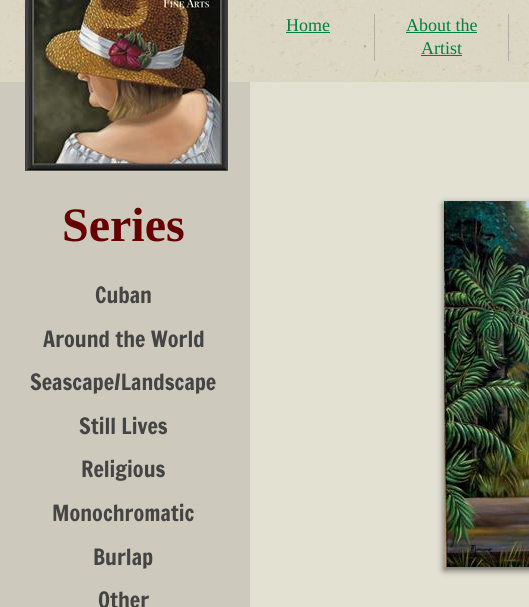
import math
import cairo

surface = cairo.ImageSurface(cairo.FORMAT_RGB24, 529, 607)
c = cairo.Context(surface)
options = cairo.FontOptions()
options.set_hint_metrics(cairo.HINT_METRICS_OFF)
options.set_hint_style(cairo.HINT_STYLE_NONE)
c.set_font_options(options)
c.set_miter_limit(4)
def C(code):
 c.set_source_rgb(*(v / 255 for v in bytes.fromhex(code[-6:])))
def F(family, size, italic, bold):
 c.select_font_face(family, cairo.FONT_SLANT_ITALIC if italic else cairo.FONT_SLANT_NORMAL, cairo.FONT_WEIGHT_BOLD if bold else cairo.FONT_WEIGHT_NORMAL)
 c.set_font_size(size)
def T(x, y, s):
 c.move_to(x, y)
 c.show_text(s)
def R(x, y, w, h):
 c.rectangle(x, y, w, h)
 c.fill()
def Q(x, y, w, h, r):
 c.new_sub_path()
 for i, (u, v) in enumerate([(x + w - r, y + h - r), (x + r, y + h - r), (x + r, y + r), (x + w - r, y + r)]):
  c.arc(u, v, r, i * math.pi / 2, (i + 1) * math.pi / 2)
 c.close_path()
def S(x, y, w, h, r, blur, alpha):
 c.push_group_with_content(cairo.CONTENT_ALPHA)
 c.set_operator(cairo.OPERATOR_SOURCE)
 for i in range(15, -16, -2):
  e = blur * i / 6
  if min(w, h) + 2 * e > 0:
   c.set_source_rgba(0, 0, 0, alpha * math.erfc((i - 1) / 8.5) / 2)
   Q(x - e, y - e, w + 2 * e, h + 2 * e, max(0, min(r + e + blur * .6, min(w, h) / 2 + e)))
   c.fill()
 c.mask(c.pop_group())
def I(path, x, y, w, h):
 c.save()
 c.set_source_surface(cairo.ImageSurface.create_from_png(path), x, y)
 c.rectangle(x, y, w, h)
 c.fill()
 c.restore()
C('ffffff')
c.paint()
I('1.png',0,0,529,82)
C('e3e1d2')
R(250,82,279,525)
C('cdcabd')
R(0,82,250,525)
I('2.png',25,0,203,171)
C('aeaeae')
R(374,14,1,47)
F('Liberation Serif',18,0,0)
C('007f3f')
T(286,31,'Home')
R(286,32,44,1)
C('aeaeae')
R(508,14,1,47)
C('007f3f')
T(406,31,'About the')
R(406,32,71,1)
T(421,54,'Artist')
R(421,55,41,1)
F('Liberation Serif',48,0,1)
C('660000')
T(62,241,'Series')
C('323232')
S(444,204,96,366,0,3.5,.75)
I('3.png',444,201,85,366)
F('Francois One',22,0,0)
C('444444')
T(95,303,'Cuban')
T(43,347,'Around the World')
T(30,390,'Seascape/Landscape')
T(79,434,'Still Lives')
T(81,477,'Religious')
T(52,521,'Monochromatic')
T(93,565,'Burlap')
T(98,608,'Other')
surface.write_to_png('o.png')
